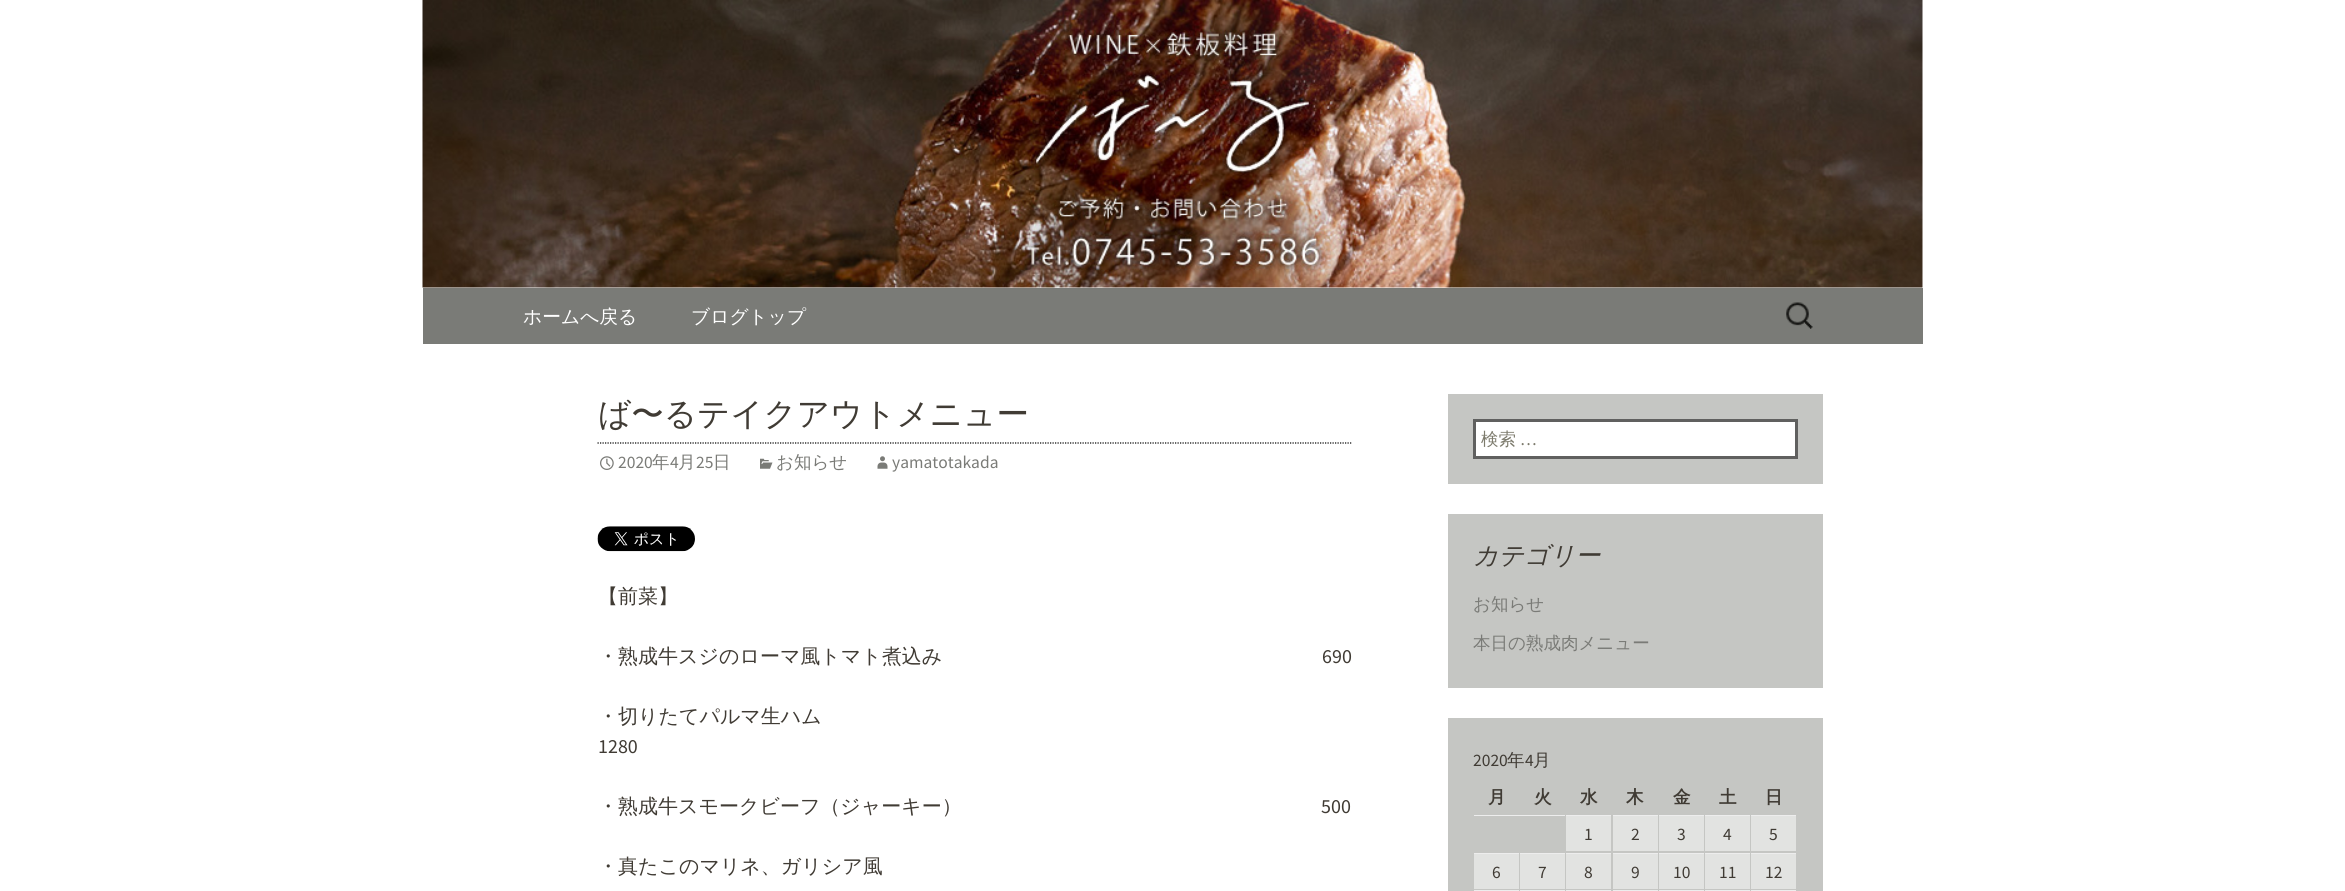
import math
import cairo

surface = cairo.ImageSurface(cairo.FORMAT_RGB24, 2345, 891)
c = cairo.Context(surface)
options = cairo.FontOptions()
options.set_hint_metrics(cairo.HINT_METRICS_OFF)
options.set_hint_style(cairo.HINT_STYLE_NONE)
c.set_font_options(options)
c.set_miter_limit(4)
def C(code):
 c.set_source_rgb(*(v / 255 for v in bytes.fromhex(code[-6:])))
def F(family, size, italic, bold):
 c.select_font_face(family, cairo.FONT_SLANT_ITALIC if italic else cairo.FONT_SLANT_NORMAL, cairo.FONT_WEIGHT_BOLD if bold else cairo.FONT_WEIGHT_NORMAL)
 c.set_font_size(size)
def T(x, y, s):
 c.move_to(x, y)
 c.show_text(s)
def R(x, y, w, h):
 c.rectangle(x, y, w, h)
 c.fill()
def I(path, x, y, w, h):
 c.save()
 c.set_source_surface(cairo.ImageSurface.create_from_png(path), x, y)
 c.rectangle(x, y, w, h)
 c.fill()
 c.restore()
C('ffffff')
c.paint()
I('1.png',422,0,1501,288)
C('7a7b77')
R(423,288,1500,56)
F('WenQuanYi Zen Hei Medium',18.75,0,0)
C('ffffff')
T(523,323,'ホームへ戻る')
T(691,323,'ブログトップ')
I('2.png',1786,302,27,27)
c.new_path()
c.move_to(597.5,443)
c.line_to(1352.5,443)
C('000000')
c.set_line_width(1.2)
c.set_dash([1.25,1.25])
c.stroke()
F('WenQuanYi Zen Hei Medium',32.5,0,0)
C('403b34')
T(598,425,'ば〜るテイクアウトメニュー')
I('3.png',600,456,14,14)
F('Source Sans Pro',17.5,0,0)
C('7a7b77')
T(618,468,'2020')
F('WenQuanYi Zen Hei Medium',17.5,0,0)
T(652,468,'年')
F('Source Sans Pro',17.5,0,0)
T(670,468,'4')
F('WenQuanYi Zen Hei Medium',17.5,0,0)
T(678,468,'月')
F('Source Sans Pro',17.5,0,0)
T(696,468,'25')
F('WenQuanYi Zen Hei Medium',17.5,0,0)
T(713,468,'日')
I('4.png',760,458,13,11)
T(776,468,'お知らせ')
I('5.png',877,456,11,13)
F('Source Sans Pro',17.5,0,0)
T(892,468,'yamatotakada')
I('6.png',597,526,98,26)
F('WenQuanYi Zen Hei Medium',20,0,0)
C('403b34')
T(598,603,'【前菜】')
T(598,663,'・熟成牛スジのローマ風トマト煮込み')
F('Source Sans Pro',20,0,0)
T(1322,663,'690')
F('WenQuanYi Zen Hei Medium',20,0,0)
T(598,723,'・切りたてパルマ生ハム')
F('Source Sans Pro',20,0,0)
T(598,753,'1280')
F('WenQuanYi Zen Hei Medium',20,0,0)
T(598,813,'・熟成牛スモークビーフ（ジャーキー）')
F('Source Sans Pro',20,0,0)
T(1321,813,'500')
F('WenQuanYi Zen Hei Medium',20,0,0)
T(598,873,'・真たこのマリネ、ガリシア風')
C('c5c6c3')
R(1448,394,375,90)
C('ffffff')
c.rectangle(1474.5,420.5,322,37)
c.fill_preserve()
C('60605f')
c.set_line_width(3)
c.set_dash([])
c.stroke()
F('WenQuanYi Zen Hei Medium',17.5,0,0)
C('7d7b6d')
T(1481,445,'検索')
F('Source Sans Pro',17.5,0,0)
T(1520,445,'…')
C('c5c6c3')
R(1448,514,375,174)
F('WenQuanYi Zen Hei Medium',25,1,0)
C('403b34')
T(1473,564,'カテゴリー')
F('WenQuanYi Zen Hei Medium',17.5,0,0)
C('7a7b77')
T(1473,610,'お知らせ')
T(1473,649,'本日の熟成肉メニュー')
C('c5c6c3')
R(1448,718,375,173)
F('Source Sans Pro',17.5,0,0)
C('403b34')
T(1473,766,'2020')
F('WenQuanYi Zen Hei Medium',17.5,0,0)
T(1507,766,'年')
F('Source Sans Pro',17.5,0,0)
T(1525,766,'4')
F('WenQuanYi Zen Hei Medium',17.5,0,0)
T(1533,766,'月')
F('WenQuanYi Zen Hei',17.5,0,1)
T(1488,803,'月')
T(1534,803,'火')
T(1580,803,'水')
T(1626,803,'木')
T(1673,803,'金')
T(1719,803,'土')
T(1765,803,'日')
C('ededed')
R(1474,815,91,1)
C('e2e3e1')
R(1566,816,45,35)
C('ededed')
R(1566,815,45,1)
F('Source Sans Pro',17.5,0,0)
C('403b34')
T(1584,840,'1')
C('e2e3e1')
R(1613,816,45,35)
C('ededed')
R(1613,815,45,1)
C('403b34')
T(1631,840,'2')
C('e2e3e1')
R(1659,816,45,35)
C('ededed')
R(1659,815,45,1)
C('403b34')
T(1677,840,'3')
C('e2e3e1')
R(1705,816,45,35)
C('ededed')
R(1705,815,45,1)
C('403b34')
T(1723,840,'4')
C('e2e3e1')
R(1751,816,45,35)
C('ededed')
R(1751,815,45,1)
C('403b34')
T(1769,840,'5')
C('e2e3e1')
R(1474,854,45,35)
C('ededed')
R(1474,853,45,1)
C('403b34')
T(1492,878,'6')
C('e2e3e1')
R(1520,854,45,35)
C('ededed')
R(1520,853,45,1)
C('403b34')
T(1538,878,'7')
C('e2e3e1')
R(1566,854,45,35)
C('ededed')
R(1566,853,45,1)
C('403b34')
T(1584,878,'8')
C('e2e3e1')
R(1613,854,45,35)
C('ededed')
R(1613,853,45,1)
C('403b34')
T(1631,878,'9')
C('e2e3e1')
R(1659,854,45,35)
C('ededed')
R(1659,853,45,1)
C('403b34')
T(1673,878,'10')
C('e2e3e1')
R(1705,854,45,35)
C('ededed')
R(1705,853,45,1)
C('403b34')
T(1719,878,'11')
C('e2e3e1')
R(1751,854,45,35)
C('ededed')
R(1751,853,45,1)
C('403b34')
T(1765,878,'12')
C('ededed')
R(1474,890,45,1)
R(1520,890,45,1)
R(1566,890,45,1)
R(1613,890,45,1)
R(1659,890,45,1)
R(1705,890,45,1)
R(1751,890,45,1)
surface.write_to_png('o.png')
